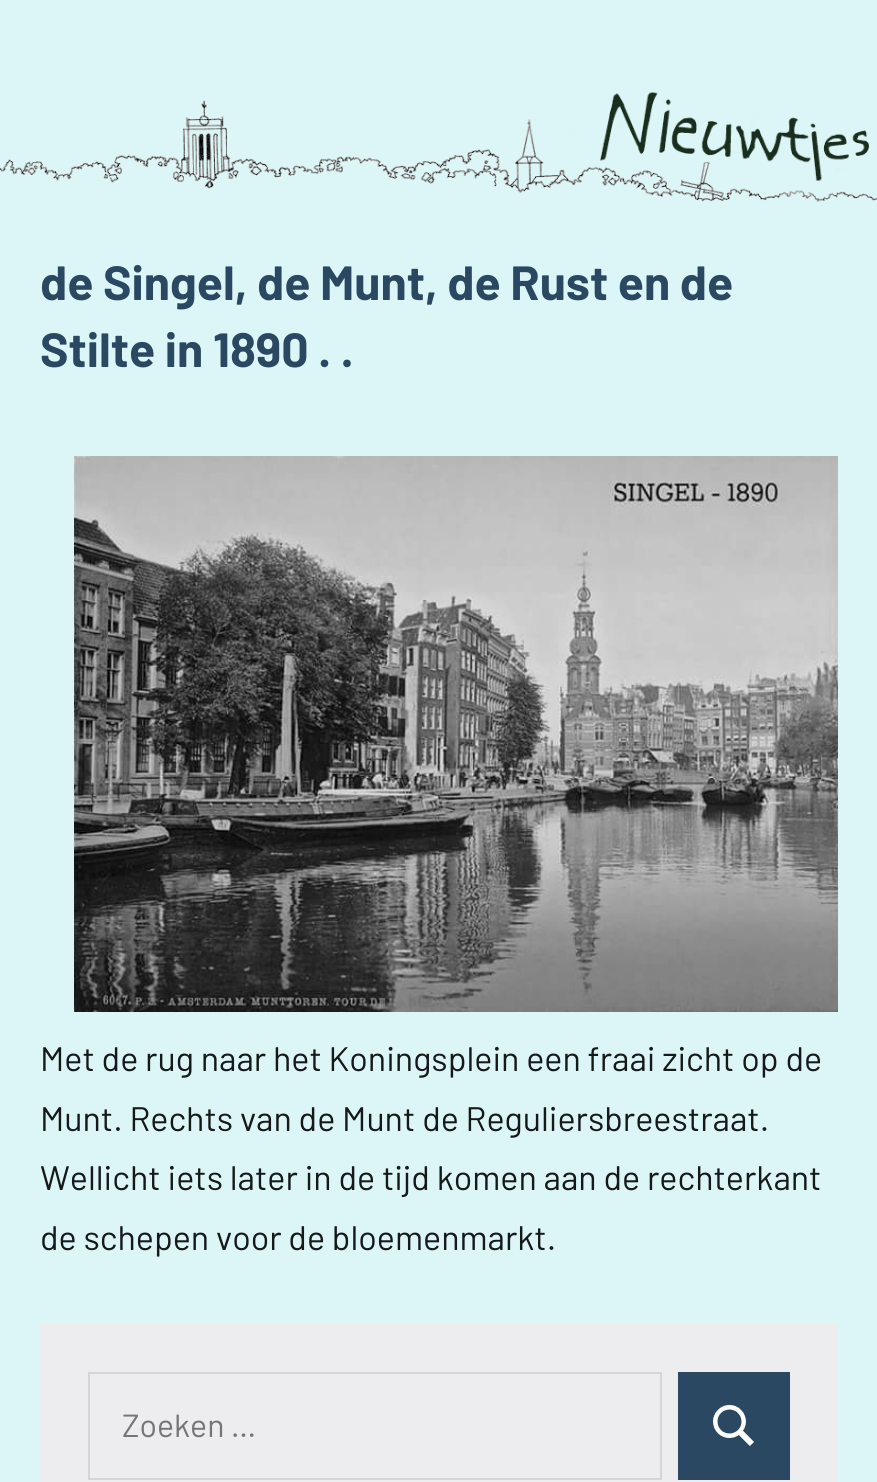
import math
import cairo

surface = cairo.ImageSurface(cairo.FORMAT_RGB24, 877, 1482)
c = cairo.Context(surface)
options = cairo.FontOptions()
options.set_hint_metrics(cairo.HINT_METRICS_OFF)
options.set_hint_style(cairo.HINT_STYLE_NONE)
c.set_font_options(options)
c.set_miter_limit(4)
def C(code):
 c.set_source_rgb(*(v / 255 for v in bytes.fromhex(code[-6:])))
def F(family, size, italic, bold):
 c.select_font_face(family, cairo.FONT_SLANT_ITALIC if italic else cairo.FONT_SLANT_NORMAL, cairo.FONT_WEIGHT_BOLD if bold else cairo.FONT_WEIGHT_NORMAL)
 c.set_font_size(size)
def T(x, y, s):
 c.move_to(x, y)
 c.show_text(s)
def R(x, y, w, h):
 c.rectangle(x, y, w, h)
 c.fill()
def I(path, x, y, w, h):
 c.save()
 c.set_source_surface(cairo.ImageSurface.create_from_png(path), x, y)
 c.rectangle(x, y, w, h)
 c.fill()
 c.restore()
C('dcf6f7')
c.paint()
I('1.png',0,92,877,110)
F('Barlow',48,0,1)
C('2a4861')
T(40,300,'de Singel, de Munt, de Rust en de')
T(40,367,'Stilte in 1890 . .')
I('2.png',74,456,764,556)
F('Barlow',34,0,0)
C('161919')
T(40,1071,'Met de rug naar het Koningsplein een fraai zicht op de')
T(40,1131,'Munt. Rechts van de Munt de Reguliersbreestraat.')
T(40,1190,'Wellicht iets later in de tijd komen aan de rechterkant')
T(40,1250,'de schepen voor de bloemenmarkt.')
C('ededef')
R(40,1324,798,158)
c.rectangle(89,1373,572,106)
C('d5d5d7')
c.stroke()
F('Barlow',32,0,0)
C('757575')
T(122,1437,'Zoeken …')
C('2a4861')
R(678,1372,112,108)
I('3.png',713,1405,41,41)
surface.write_to_png('o.png')
